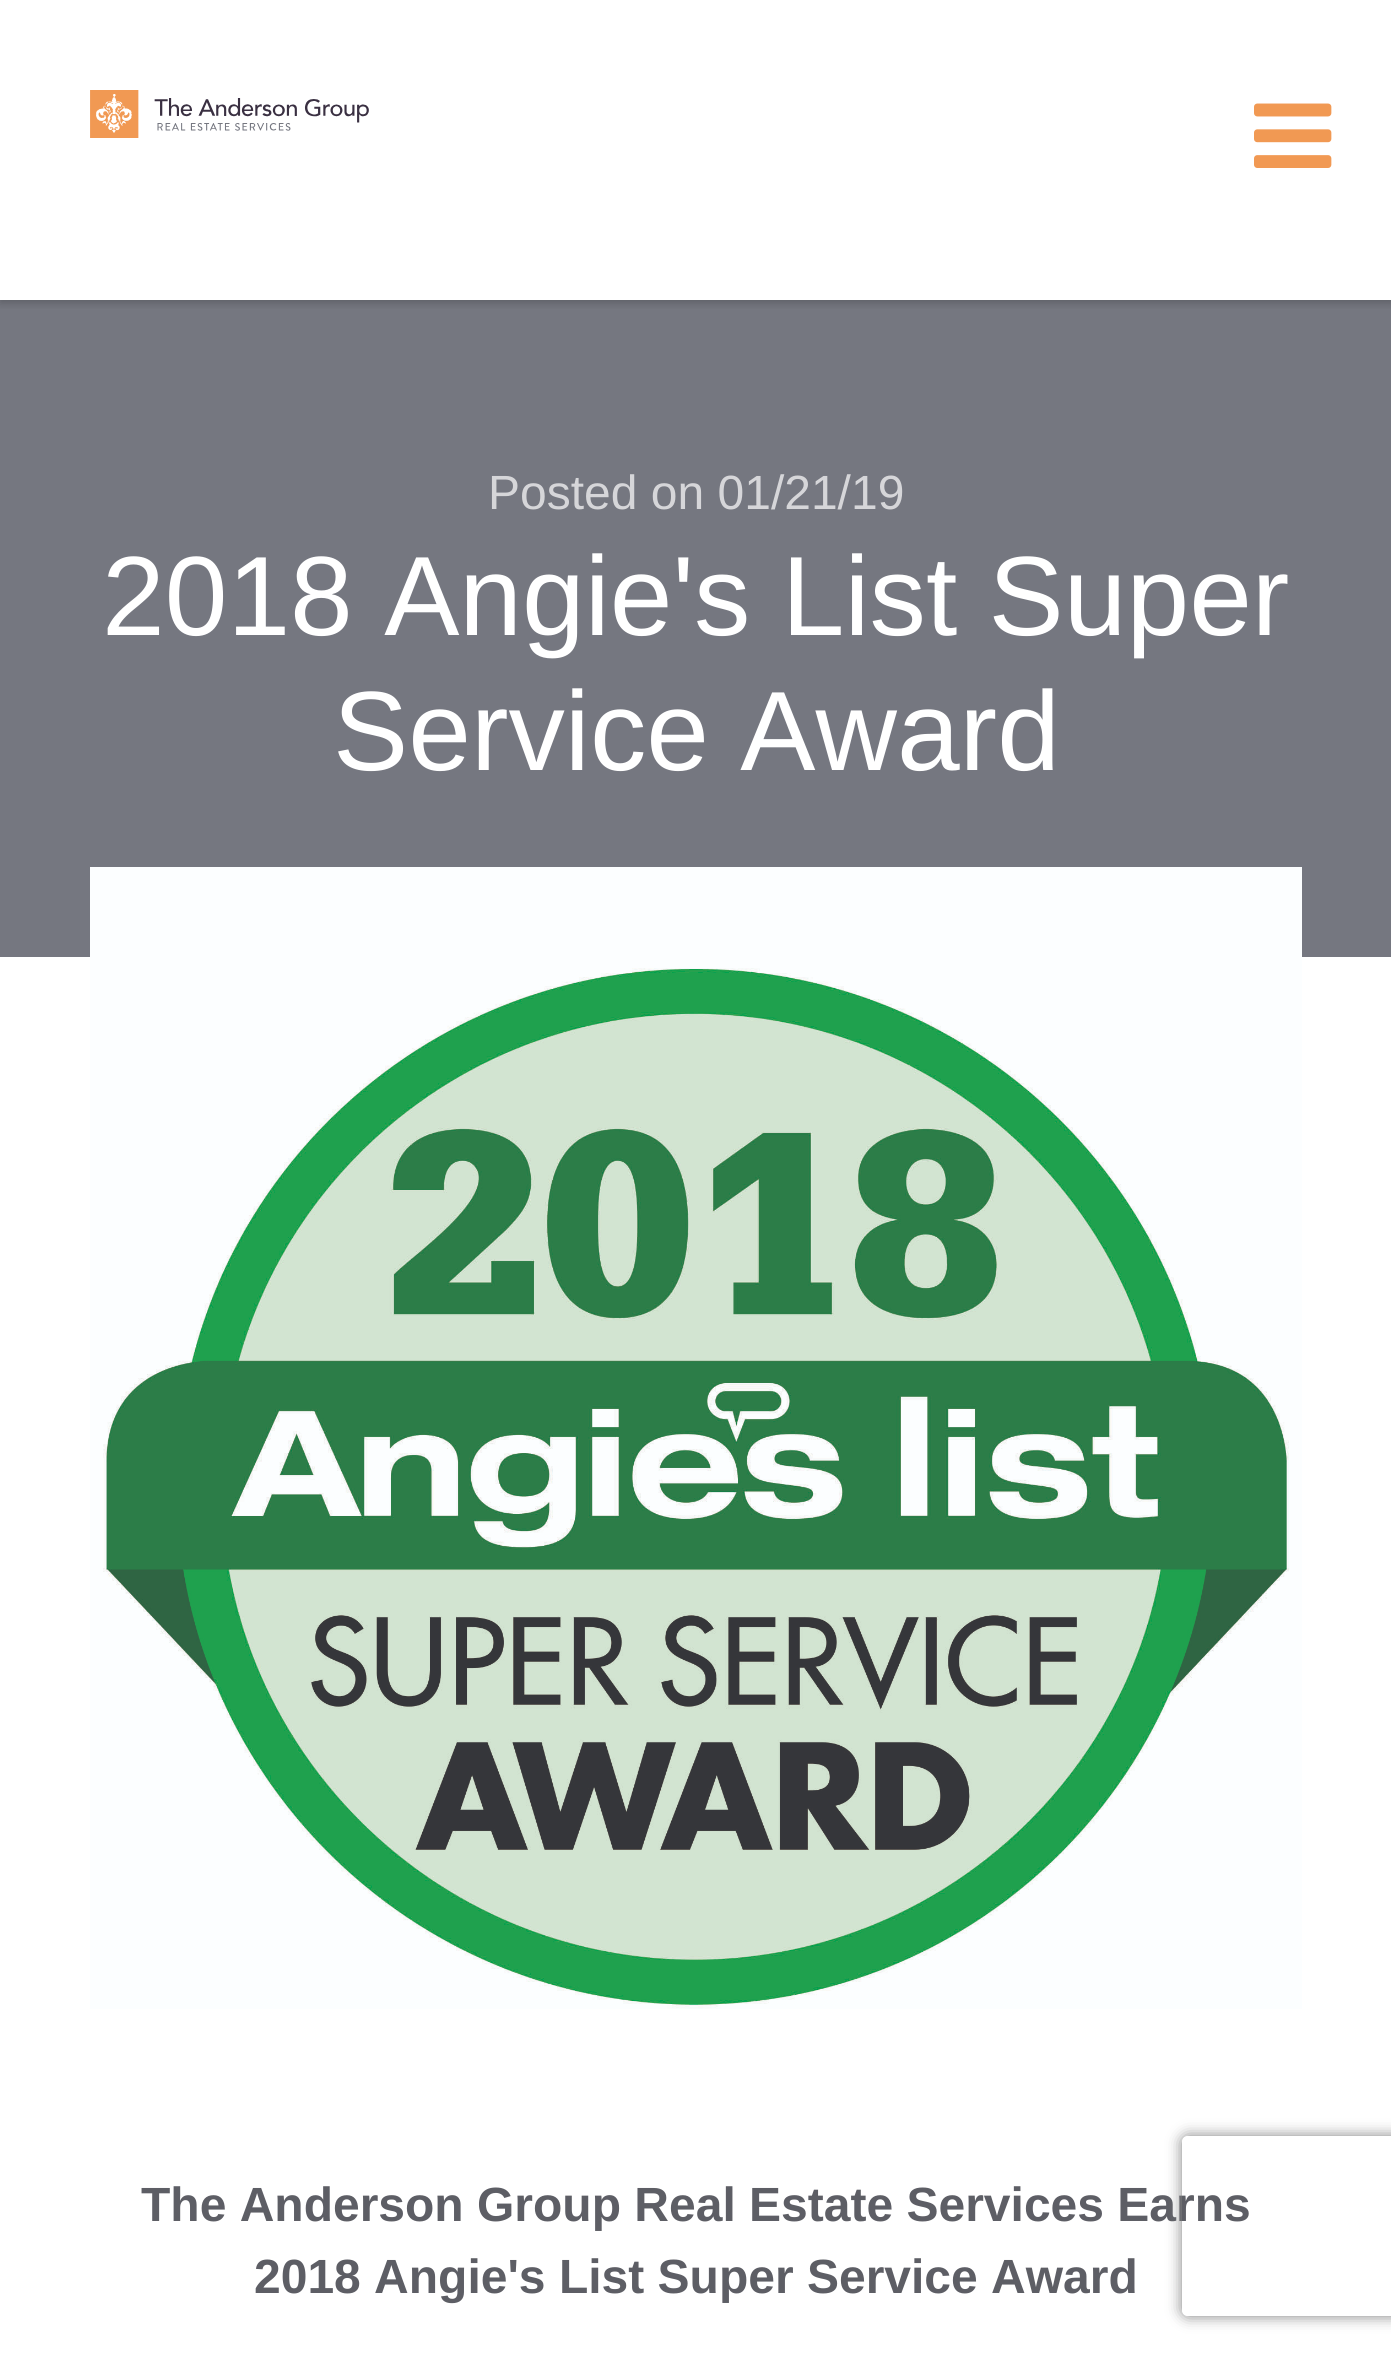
import math
import cairo

surface = cairo.ImageSurface(cairo.FORMAT_RGB24, 1391, 2358)
c = cairo.Context(surface)
options = cairo.FontOptions()
options.set_hint_metrics(cairo.HINT_METRICS_OFF)
options.set_hint_style(cairo.HINT_STYLE_NONE)
c.set_font_options(options)
c.set_miter_limit(4)
def C(code):
 c.set_source_rgb(*(v / 255 for v in bytes.fromhex(code[-6:])))
def F(family, size, italic, bold):
 c.select_font_face(family, cairo.FONT_SLANT_ITALIC if italic else cairo.FONT_SLANT_NORMAL, cairo.FONT_WEIGHT_BOLD if bold else cairo.FONT_WEIGHT_NORMAL)
 c.set_font_size(size)
def T(x, y, s):
 c.move_to(x, y)
 c.show_text(s)
def R(x, y, w, h):
 c.rectangle(x, y, w, h)
 c.fill()
def Q(x, y, w, h, r):
 c.new_sub_path()
 for i, (u, v) in enumerate([(x + w - r, y + h - r), (x + r, y + h - r), (x + r, y + r), (x + w - r, y + r)]):
  c.arc(u, v, r, i * math.pi / 2, (i + 1) * math.pi / 2)
 c.close_path()
def S(x, y, w, h, r, blur, alpha):
 c.push_group_with_content(cairo.CONTENT_ALPHA)
 c.set_operator(cairo.OPERATOR_SOURCE)
 for i in range(15, -16, -2):
  e = blur * i / 6
  if min(w, h) + 2 * e > 0:
   c.set_source_rgba(0, 0, 0, alpha * math.erfc((i - 1) / 8.5) / 2)
   Q(x - e, y - e, w + 2 * e, h + 2 * e, max(0, min(r + e + blur * .6, min(w, h) / 2 + e)))
   c.fill()
 c.mask(c.pop_group())
def I(path, x, y, w, h):
 c.save()
 c.set_source_surface(cairo.ImageSurface.create_from_png(path), x, y)
 c.rectangle(x, y, w, h)
 c.fill()
 c.restore()
C('ffffff')
c.paint()
C('757780')
R(0,300,1391,657)
c.save()
c.rectangle(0,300,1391,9)
c.clip()
C('000000')
S(0,3,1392,300,0,4.5,.2)
c.restore()
I('1.png',90,90,279,48)
I('2.png',1254,103,78,65)
F('Liberation Sans',48,0,0)
C('d6d6d9')
T(488,509,'Posted on 01/21/19')
F('Liberation Sans',112.75,0,0)
C('ffffff')
T(102,635,'2018 Angie\'s List Super')
T(333,770,'Service Award')
I('3.png',90,867,1212,1142)
F('Liberation Sans',48,0,1)
C('5d5e65')
T(141,2221,'The Anderson Group Real Estate Services Earns')
T(254,2293,'2018 Angie\'s List Super Service Award')
c.save()
c.set_fill_rule(cairo.FILL_RULE_EVEN_ODD)
c.new_path()
c.move_to(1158,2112)
c.line_to(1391,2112)
c.line_to(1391,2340)
c.line_to(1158,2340)
c.close_path()
c.move_to(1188,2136)
c.line_to(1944,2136)
c.curve_to(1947.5,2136,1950,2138.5,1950,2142)
c.line_to(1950,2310)
c.curve_to(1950,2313.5,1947.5,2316,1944,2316)
c.line_to(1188,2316)
c.curve_to(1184.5,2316,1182,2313.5,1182,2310)
c.line_to(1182,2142)
c.curve_to(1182,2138.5,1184.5,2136,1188,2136)
c.close_path()
c.clip()
C('808080')
S(1182,2136,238,180,6,7.5,1)
c.restore()
surface.write_to_png('o.png')
